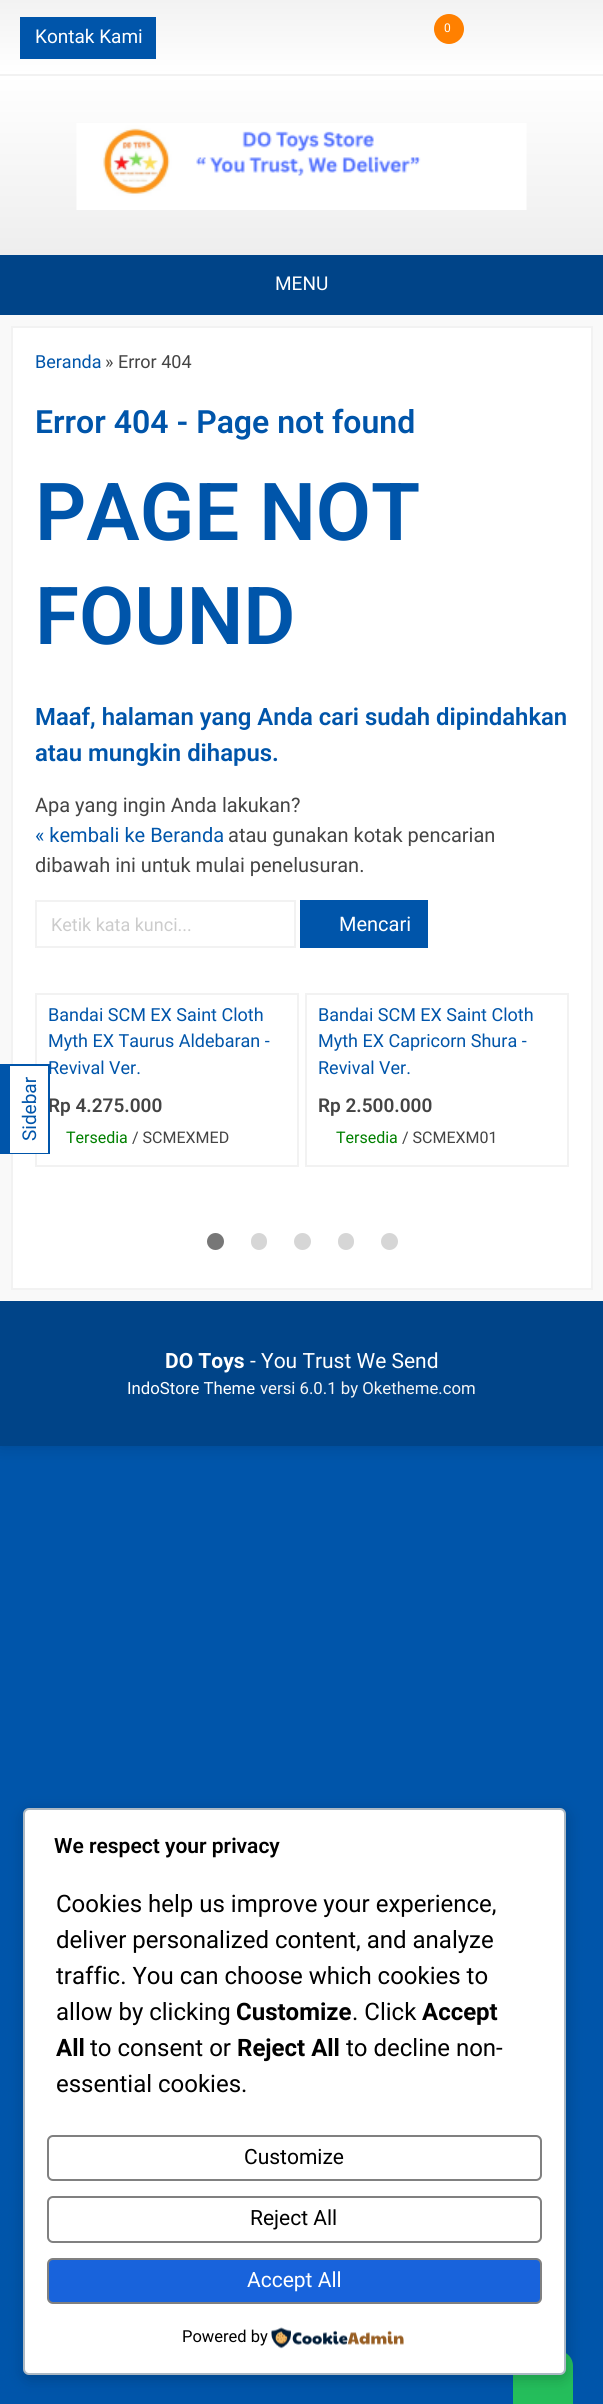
import math
import cairo

surface = cairo.ImageSurface(cairo.FORMAT_RGB24, 603, 2404)
c = cairo.Context(surface)
options = cairo.FontOptions()
options.set_hint_metrics(cairo.HINT_METRICS_OFF)
options.set_hint_style(cairo.HINT_STYLE_NONE)
c.set_font_options(options)
c.set_miter_limit(4)
def C(code):
 c.set_source_rgb(*(v / 255 for v in bytes.fromhex(code[-6:])))
def F(family, size, italic, bold):
 c.select_font_face(family, cairo.FONT_SLANT_ITALIC if italic else cairo.FONT_SLANT_NORMAL, cairo.FONT_WEIGHT_BOLD if bold else cairo.FONT_WEIGHT_NORMAL)
 c.set_font_size(size)
def T(x, y, s):
 c.move_to(x, y)
 c.show_text(s)
def R(x, y, w, h):
 c.rectangle(x, y, w, h)
 c.fill()
def Q(x, y, w, h, r):
 c.new_sub_path()
 for i, (u, v) in enumerate([(x + w - r, y + h - r), (x + r, y + h - r), (x + r, y + r), (x + w - r, y + r)]):
  c.arc(u, v, r, i * math.pi / 2, (i + 1) * math.pi / 2)
 c.close_path()
def S(x, y, w, h, r, blur, alpha):
 c.push_group_with_content(cairo.CONTENT_ALPHA)
 c.set_operator(cairo.OPERATOR_SOURCE)
 for i in range(15, -16, -2):
  e = blur * i / 6
  if min(w, h) + 2 * e > 0:
   c.set_source_rgba(0, 0, 0, alpha * math.erfc((i - 1) / 8.5) / 2)
   Q(x - e, y - e, w + 2 * e, h + 2 * e, max(0, min(r + e + blur * .6, min(w, h) / 2 + e)))
   c.fill()
 c.mask(c.pop_group())
def I(path, x, y, w, h):
 c.save()
 c.set_source_surface(cairo.ImageSurface.create_from_png(path), x, y)
 c.rectangle(x, y, w, h)
 c.fill()
 c.restore()
C('0055aa')
c.paint()
C('000000')
S(0,0,603,1446,0,9,.15)
gradient = cairo.LinearGradient(302,0,302,74)
gradient.add_color_stop_rgba(0,0.949,0.949,0.949,1)
gradient.add_color_stop_rgba(1,1,1,1,1)
c.set_source(gradient)
R(0,0,603,74)
C('f2f2f2')
R(0,74,603,2)
C('0055aa')
R(20,17,136,42)
F('Roboto',19,0,0)
C('ffffff')
T(35,43,'Kontak Kami')
C('ff8000')
c.new_path()
c.arc(449,29,15,0,2 * math.pi)
c.fill()
F('Roboto',12,0,0)
C('ffffff')
T(444,32,'0')
gradient = cairo.LinearGradient(302,75,302,255)
gradient.add_color_stop_rgba(0,1,1,1,1)
gradient.add_color_stop_rgba(1,0.933,0.933,0.933,1)
c.set_source(gradient)
R(0,76,603,179)
I('1.png',76,123,451,87)
C('004488')
R(0,255,603,60)
F('Roboto',19,0,0)
C('ffffff')
T(275,290,'MENU')
C('f9f9f9')
R(0,315,603,986)
C('ffffff')
c.rectangle(12,327,580,962)
c.fill_preserve()
C('f2f2f2')
c.stroke()
c.rectangle(36,994,262,172)
c.stroke()
C('ffffff')
R(10,1066,27,87)
C('0055aa')
R(0,1066,10,87)
R(0,1064,50,2)
F('Roboto SemiBold',19,0,0)
C('444444')
T(48,1112,'Rp 4.275.000')
C('0055aa')
R(48,1064,2,90)
R(0,1153,50,1)
F('Roboto',19,0,0)
c.save()
c.translate(36,1141)
c.rotate(-90 * math.pi / 180)
T(0,0,'Sidebar')
c.restore()
F('Roboto',18,0,0)
T(35,368,'Beranda')
C('444444')
T(105,368,'» Error 404')
F('Roboto SemiBold',32,0,0)
C('0055aa')
T(35,433,'Error 404 - Page not found')
F('Roboto SemiBold',80,0,0)
T(35,540,'PAGE NOT')
T(35,644,'FOUND')
F('Roboto SemiBold',23.9,0,0)
T(35,725,'Maaf, halaman yang Anda cari sudah dipindahkan')
T(35,761,'atau mungkin dihapus.')
F('Roboto',20,0,0)
C('444444')
T(35,812,'Apa yang ingin Anda lakukan?')
C('0055aa')
T(35,842,'« kembali ke Beranda')
C('444444')
T(228,842,'atau gunakan kotak pencarian')
T(35,872,'dibawah ini untuk mulai penelusuran.')
c.rectangle(36,901,259,46)
C('f2f2f2')
c.stroke()
F('Roboto',18,0,0)
C('cccccc')
T(51,931,'Ketik kata kunci...')
C('0055aa')
R(300,900,128,48)
F('Roboto',20,0,0)
C('ffffff')
T(339,931,'Mencari')
F('Roboto',18,0,0)
C('0055aa')
T(48,1021,'Bandai SCM EX Saint Cloth')
T(48,1047,'Myth EX Taurus Aldebaran -')
T(48,1074,'Revival Ver.')
F('Roboto',16,0,0)
C('008000')
T(66,1143,'Tersedia')
C('444444')
T(132,1143,'/ SCMEXMED')
c.rectangle(306,994,262,172)
C('f2f2f2')
c.stroke()
F('Roboto',18,0,0)
C('0055aa')
T(318,1021,'Bandai SCM EX Saint Cloth')
T(318,1047,'Myth EX Capricorn Shura -')
T(318,1074,'Revival Ver.')
F('Roboto SemiBold',19,0,0)
C('444444')
T(318,1112,'Rp 2.500.000')
F('Roboto',16,0,0)
C('008000')
T(336,1143,'Tersedia')
C('444444')
T(402,1143,'/ SCMEXM01')
C('777777')
c.new_path()
c.arc(215.5,1241.5,10,0,2 * math.pi)
c.fill_preserve()
C('ffffff')
c.set_line_width(3)
c.stroke()
C('d6d6d6')
Q(249.5,1231.5,19,20,9.5)
c.fill_preserve()
C('ffffff')
c.stroke()
C('d6d6d6')
c.arc(302.5,1241.5,10,0,2 * math.pi)
c.fill_preserve()
C('ffffff')
c.stroke()
C('d6d6d6')
Q(336.5,1231.5,19,20,9.5)
c.fill_preserve()
C('ffffff')
c.stroke()
C('d6d6d6')
c.arc(389.5,1241.5,10,0,2 * math.pi)
c.fill_preserve()
C('ffffff')
c.stroke()
C('004488')
R(0,1301,603,145)
F('Roboto',21,0,1)
C('ffffff')
T(165,1368,'DO Toys')
F('Roboto',21,0,0)
T(250,1368,'- You Trust We Send')
F('Roboto',16.75,0,0)
T(127,1394,'IndoStore Theme')
C('f5f5f5')
T(260,1394,'versi 6.0.1 by Oketheme.com')
C('24be5b')
c.new_path()
c.move_to(528,2351)
c.line_to(558,2351)
c.curve_to(566.5,2351,573,2357.5,573,2366)
c.line_to(573,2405)
c.line_to(513,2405)
c.line_to(513,2366)
c.curve_to(513,2357.5,519.5,2351,528,2351)
c.close_path()
c.fill()
C('000000')
S(24,1812,543,567,6,7.5,.2)
C('ffffff')
Q(24,1809,541,565,5)
c.fill_preserve()
C('abb8c3')
c.set_line_width(2)
c.stroke()
F('Roboto SemiBold',21,0,0)
C('000000')
T(54,1853,'We respect your privacy')
F('Roboto',24,0,0)
T(56,1912,'Cookies help us improve your experience,')
T(56,1948,'deliver personalized content, and analyze')
T(56,1984,'traffic. You can choose which cookies to')
T(56,2020,'allow by clicking')
F('Roboto',24,0,1)
T(236,2020,'Customize')
F('Roboto',24,0,0)
T(352,2020,'. Click')
F('Roboto',24,0,1)
T(422,2020,'Accept')
T(56,2056,'All')
F('Roboto',24,0,0)
T(90,2056,'to consent or')
F('Roboto',24,0,1)
T(237,2056,'Reject All')
F('Roboto',24,0,0)
T(346,2056,'to decline non-')
T(56,2092,'essential cookies.')
Q(48,2136,493,44,5)
C('808080')
c.stroke()
F('Roboto',21,0,0)
C('000000')
T(244,2164,'Customize')
Q(48,2197,493,45,5)
C('808080')
c.stroke()
C('000000')
T(250,2225,'Reject All')
C('1863dc')
Q(48,2259,493,44,5)
c.fill_preserve()
C('808080')
c.stroke()
C('ffffff')
T(247,2287,'Accept All')
F('Roboto',16.5,0,0)
C('000000')
T(182,2342,'Powered by')
I('2.png',271,2327,133,22)
surface.write_to_png('o.png')
